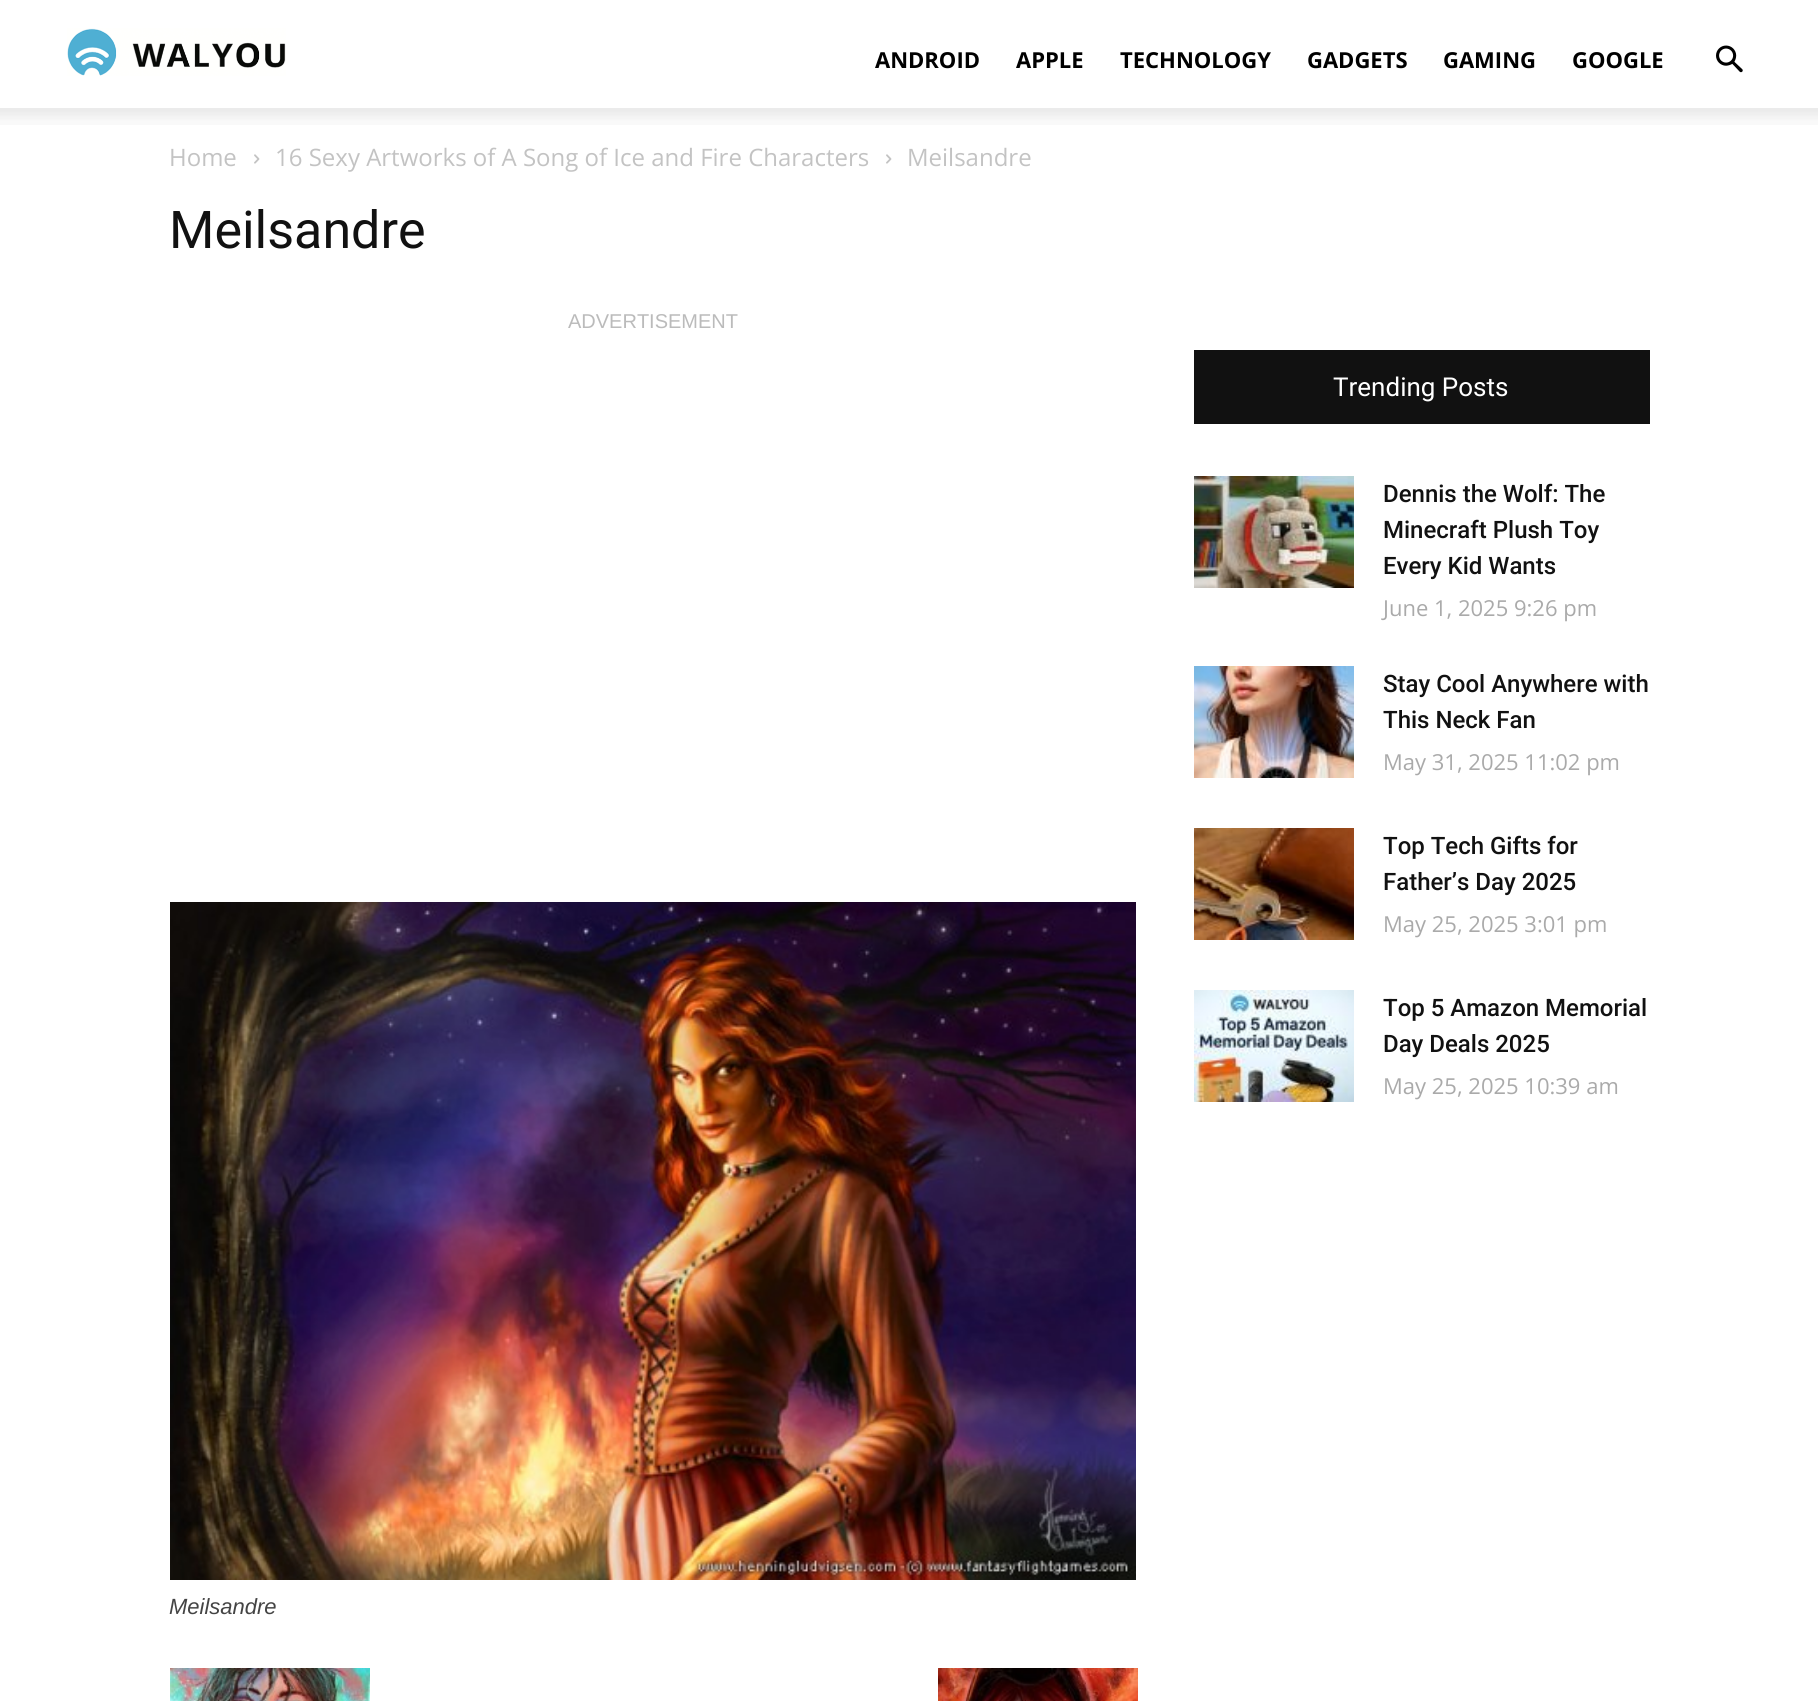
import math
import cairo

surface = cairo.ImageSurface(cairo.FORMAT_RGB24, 1818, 1701)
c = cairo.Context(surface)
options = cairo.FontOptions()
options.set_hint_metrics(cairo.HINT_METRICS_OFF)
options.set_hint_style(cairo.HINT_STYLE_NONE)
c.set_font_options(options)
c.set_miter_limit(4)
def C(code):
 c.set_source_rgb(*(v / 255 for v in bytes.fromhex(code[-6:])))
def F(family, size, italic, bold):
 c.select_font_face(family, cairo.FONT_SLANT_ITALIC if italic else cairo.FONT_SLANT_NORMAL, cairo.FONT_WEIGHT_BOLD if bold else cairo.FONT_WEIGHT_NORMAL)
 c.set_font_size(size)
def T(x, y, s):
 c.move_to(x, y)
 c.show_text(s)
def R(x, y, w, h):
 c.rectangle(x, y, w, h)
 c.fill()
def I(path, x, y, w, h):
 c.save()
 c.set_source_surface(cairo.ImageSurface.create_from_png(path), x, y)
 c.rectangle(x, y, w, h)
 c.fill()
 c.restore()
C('ffffff')
c.paint()
I('1.png',67,28,219,48)
F('Open Sans',22,0,1)
C('000000')
T(875,68,'ANDROID')
T(1016,68,'APPLE')
T(1120,68,'TECHNOLOGY')
T(1307,68,'GADGETS')
T(1443,68,'GAMING')
T(1572,68,'GOOGLE')
I('2.png',1716,45,27,28)
I('3.png',0,108,1818,17)
F('Open Sans',24,0,0)
C('c3c3c3')
T(169,166,'Home')
I('4.png',254,154,6,10)
T(275,166,'16 Sexy Artworks of A Song of Ice and Fire Characters')
I('4.png',886,154,6,10)
T(907,166,'Meilsandre')
F('Roboto',52,0,0)
C('111111')
T(169,248,'Meilsandre')
F('Liberation Sans',20,0,0)
C('bbbbbb')
T(568,328,'ADVERTISEMENT')
I('5.png',170,902,966,678)
F('Liberation Sans',22,1,0)
C('444444')
T(169,1614,'Meilsandre')
I('6.png',170,1668,200,33)
I('7.png',938,1668,200,33)
C('111111')
R(1194,350,456,74)
F('Roboto',26,0,0)
C('ffffff')
T(1333,396,'Trending Posts')
I('8.png',1194,476,160,112)
F('Roboto Medium',24,0,0)
C('111111')
T(1383,502,'Dennis the Wolf: The')
T(1383,538,'Minecraft Plush Toy')
T(1383,574,'Every Kid Wants')
F('Open Sans',22,0,0)
C('aaaaaa')
T(1383,616,'June 1, 2025 9:26 pm')
I('9.png',1194,666,160,112)
F('Roboto Medium',24,0,0)
C('111111')
T(1383,692,'Stay Cool Anywhere with')
T(1383,728,'This Neck Fan')
F('Open Sans',22,0,0)
C('aaaaaa')
T(1383,770,'May 31, 2025 11:02 pm')
I('10.png',1194,828,160,112)
F('Roboto Medium',24,0,0)
C('111111')
T(1383,854,'Top Tech Gifts for')
T(1383,890,'Father’s Day 2025')
F('Open Sans',22,0,0)
C('aaaaaa')
T(1383,932,'May 25, 2025 3:01 pm')
I('11.png',1194,990,160,112)
F('Roboto Medium',24,0,0)
C('111111')
T(1383,1016,'Top 5 Amazon Memorial')
T(1383,1052,'Day Deals 2025')
F('Open Sans',22,0,0)
C('aaaaaa')
T(1383,1094,'May 25, 2025 10:39 am')
surface.write_to_png('o.png')
